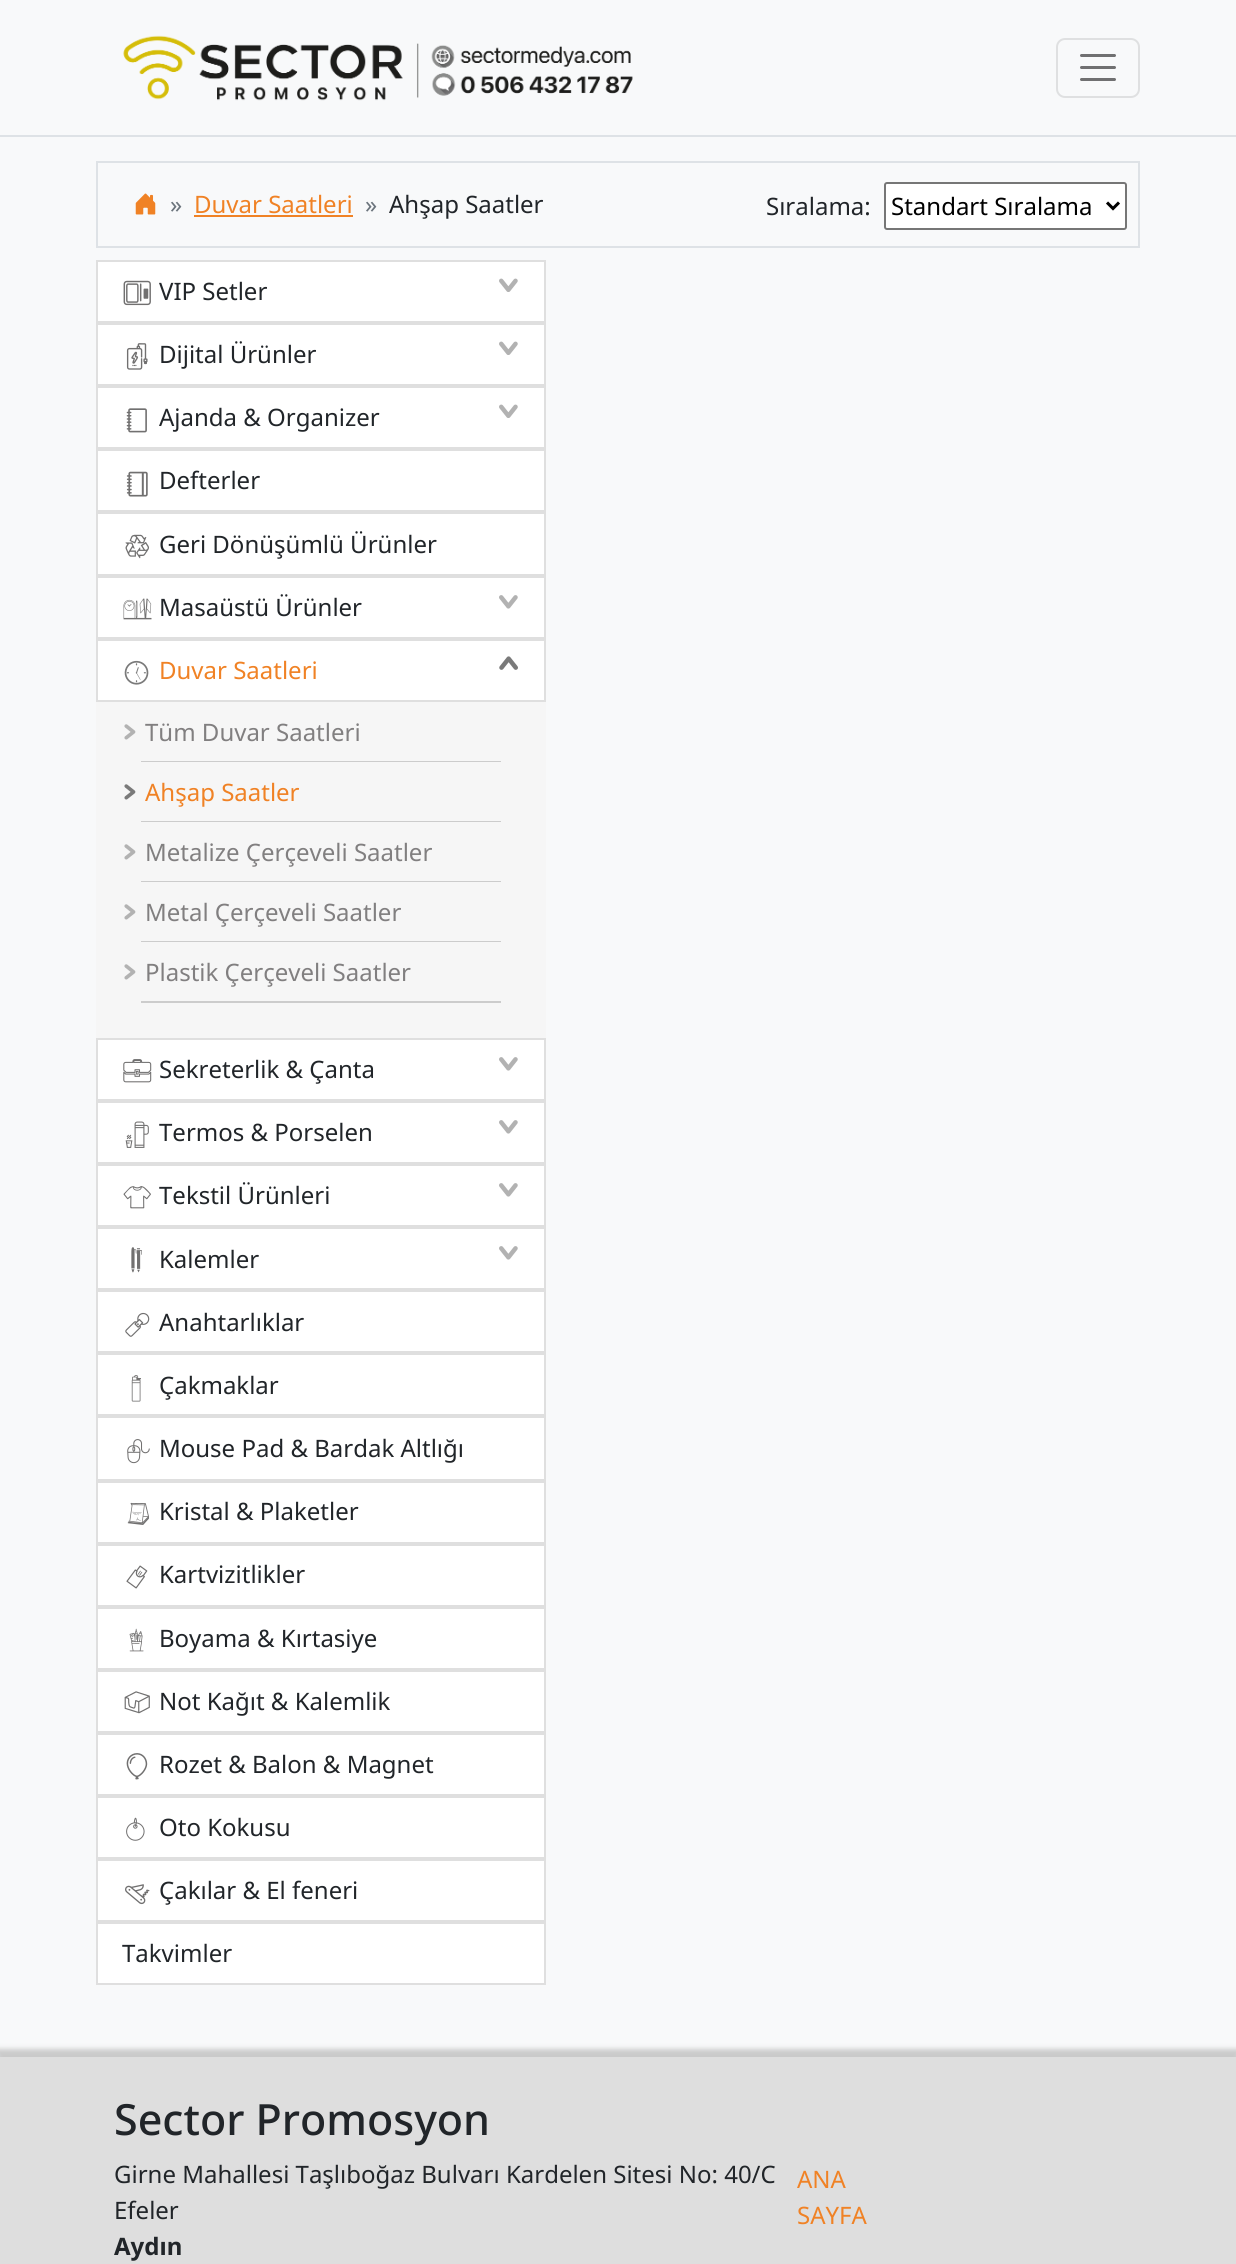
import math
import cairo

surface = cairo.ImageSurface(cairo.FORMAT_RGB24, 1236, 2264)
c = cairo.Context(surface)
options = cairo.FontOptions()
options.set_hint_metrics(cairo.HINT_METRICS_OFF)
options.set_hint_style(cairo.HINT_STYLE_NONE)
c.set_font_options(options)
c.set_miter_limit(4)
def C(code):
 c.set_source_rgb(*(v / 255 for v in bytes.fromhex(code[-6:])))
def F(family, size, italic, bold):
 c.select_font_face(family, cairo.FONT_SLANT_ITALIC if italic else cairo.FONT_SLANT_NORMAL, cairo.FONT_WEIGHT_BOLD if bold else cairo.FONT_WEIGHT_NORMAL)
 c.set_font_size(size)
def T(x, y, s):
 c.move_to(x, y)
 c.show_text(s)
def R(x, y, w, h):
 c.rectangle(x, y, w, h)
 c.fill()
def Q(x, y, w, h, r):
 c.new_sub_path()
 for i, (u, v) in enumerate([(x + w - r, y + h - r), (x + r, y + h - r), (x + r, y + r), (x + w - r, y + r)]):
  c.arc(u, v, r, i * math.pi / 2, (i + 1) * math.pi / 2)
 c.close_path()
def S(x, y, w, h, r, blur, alpha):
 c.push_group_with_content(cairo.CONTENT_ALPHA)
 c.set_operator(cairo.OPERATOR_SOURCE)
 for i in range(15, -16, -2):
  e = blur * i / 6
  if min(w, h) + 2 * e > 0:
   c.set_source_rgba(0, 0, 0, alpha * math.erfc((i - 1) / 8.5) / 2)
   Q(x - e, y - e, w + 2 * e, h + 2 * e, max(0, min(r + e + blur * .6, min(w, h) / 2 + e)))
   c.fill()
 c.mask(c.pop_group())
def I(path, x, y, w, h):
 c.save()
 c.set_source_surface(cairo.ImageSurface.create_from_png(path), x, y)
 c.rectangle(x, y, w, h)
 c.fill()
 c.restore()
C('f8f9fa')
c.paint()
C('dee2e6')
R(0,135,1236,2)
I('1.png',123,35,510,66)
Q(1057,39,82,58,8)
C('dfe0e1')
c.stroke()
c.new_path()
c.move_to(1081.5,55.5)
c.line_to(1114.5,55.5)
c.move_to(1081.5,67.5)
c.line_to(1114.5,67.5)
c.move_to(1081.5,79.5)
c.line_to(1114.5,79.5)
C('707071')
c.set_line_width(3)
c.set_line_cap(cairo.LINE_CAP_ROUND)
c.stroke()
c.rectangle(97,162,1042,85)
C('dee2e6')
c.set_line_width(2)
c.set_line_cap(cairo.LINE_CAP_BUTT)
c.stroke()
I('2.png',135,193,21,22)
F('Noto Sans',24,0,0)
C('6c757d')
T(170,213,'»')
C('f08225')
T(194,213,'Duvar Saatleri')
R(194,215,159,2)
C('6c757d')
T(365,213,'»')
C('212529')
T(389,213,'Ahşap Saatler')
T(766,215,'Sıralama:')
C('ffffff')
Q(885,183,241,46,2)
c.fill_preserve()
C('767676')
c.stroke()
c.new_path()
c.move_to(1107,202.5)
c.line_to(1113,208.5)
c.line_to(1119,202.5)
C('000000')
c.set_line_width(3)
c.stroke()
T(891,215,'Standart Sıralama')
C('ffffff')
c.rectangle(97,261,448,61)
c.fill_preserve()
C('dfdfdf')
c.set_line_width(2)
c.stroke()
I('3.png',123,280,28,26)
C('212529')
T(159,300,'VIP Setler')
I('4.png',499,278,19,14)
C('ffffff')
c.rectangle(97,324,448,61)
c.fill_preserve()
C('dfdfdf')
c.stroke()
I('5.png',126,343,22,27)
C('212529')
T(159,363,'Dijital Ürünler')
I('4.png',499,341,19,14)
C('ffffff')
c.rectangle(97,387,448,61)
c.fill_preserve()
C('dfdfdf')
c.stroke()
I('6.png',126,408,21,25)
C('212529')
T(159,426,'Ajanda & Organizer')
I('4.png',499,404,19,14)
C('ffffff')
c.rectangle(97,450,448,61)
c.fill_preserve()
C('dfdfdf')
c.stroke()
I('7.png',126,471,22,26)
C('212529')
T(159,489,'Defterler')
C('ffffff')
c.rectangle(97,513,448,62)
c.fill_preserve()
C('dfdfdf')
c.stroke()
I('8.png',125,534,24,25)
C('212529')
T(159,553,'Geri Dönüşümlü Ürünler')
C('ffffff')
c.rectangle(97,577,448,61)
c.fill_preserve()
C('dfdfdf')
c.stroke()
I('9.png',123,598,29,22)
C('212529')
T(159,616,'Masaüstü Ürünler')
I('10.png',499,595,19,14)
C('ffffff')
c.rectangle(97,640,448,61)
c.fill_preserve()
C('dfdfdf')
c.stroke()
I('11.png',124,660,25,25)
C('f08225')
T(159,679,'Duvar Saatleri')
I('12.png',499,656,19,14)
C('f6f6f6')
R(96,702,450,300)
I('13.png',124,724,12,16)
C('817f80')
T(145,741,'Tüm Duvar Saatleri')
C('cccccc')
R(141,761,360,1)
I('14.png',124,784,12,16)
C('f08225')
T(145,801,'Ahşap Saatler')
C('cccccc')
R(141,821,360,1)
I('13.png',124,844,12,16)
C('817f80')
T(145,861,'Metalize Çerçeveli Saatler')
C('cccccc')
R(141,881,360,1)
I('13.png',124,904,12,16)
C('817f80')
T(145,921,'Metal Çerçeveli Saatler')
C('cccccc')
R(141,941,360,1)
I('13.png',124,964,12,16)
C('817f80')
T(145,981,'Plastik Çerçeveli Saatler')
C('f6f6f6')
R(96,1002,450,36)
C('cccccc')
R(141,1001,360,2)
C('ffffff')
c.rectangle(97,1039,448,61)
c.fill_preserve()
C('dfdfdf')
c.stroke()
I('15.png',123,1059,29,24)
C('212529')
T(159,1078,'Sekreterlik & Çanta')
I('10.png',499,1057,19,14)
C('ffffff')
c.rectangle(97,1102,448,61)
c.fill_preserve()
C('dfdfdf')
c.stroke()
I('16.png',125,1121,24,27)
C('212529')
T(159,1141,'Termos & Porselen')
I('10.png',499,1120,19,14)
C('ffffff')
c.rectangle(97,1165,448,61)
c.fill_preserve()
C('dfdfdf')
c.stroke()
I('17.png',123,1186,28,23)
C('212529')
T(159,1204,'Tekstil Ürünleri')
I('10.png',499,1183,19,14)
C('ffffff')
c.rectangle(97,1228,448,61)
c.fill_preserve()
C('dfdfdf')
c.stroke()
I('18.png',131,1247,11,26)
C('212529')
T(159,1268,'Kalemler')
I('10.png',499,1246,19,14)
C('ffffff')
c.rectangle(97,1291,448,61)
c.fill_preserve()
C('dfdfdf')
c.stroke()
I('19.png',125,1312,25,25)
C('212529')
T(159,1331,'Anahtarlıklar')
C('ffffff')
c.rectangle(97,1354,448,61)
c.fill_preserve()
C('dfdfdf')
c.stroke()
I('20.png',131,1375,10,27)
C('212529')
T(159,1394,'Çakmaklar')
C('ffffff')
c.rectangle(97,1417,448,63)
c.fill_preserve()
C('dfdfdf')
c.stroke()
I('21.png',127,1439,23,25)
C('212529')
T(159,1457,'Mouse Pad & Bardak Altlığı')
C('ffffff')
c.rectangle(97,1482,448,61)
c.fill_preserve()
C('dfdfdf')
c.stroke()
I('22.png',127,1502,22,23)
C('212529')
T(159,1520,'Kristal & Plaketler')
C('ffffff')
c.rectangle(97,1545,448,61)
c.fill_preserve()
C('dfdfdf')
c.stroke()
I('23.png',126,1565,22,24)
C('212529')
T(159,1583,'Kartvizitlikler')
C('ffffff')
c.rectangle(97,1608,448,61)
c.fill_preserve()
C('dfdfdf')
c.stroke()
I('24.png',129,1628,15,24)
C('212529')
T(159,1647,'Boyama & Kırtasiye')
C('ffffff')
c.rectangle(97,1671,448,61)
c.fill_preserve()
C('dfdfdf')
c.stroke()
I('25.png',124,1691,26,23)
C('212529')
T(159,1710,'Not Kağıt & Kalemlik')
C('ffffff')
c.rectangle(97,1734,448,61)
c.fill_preserve()
C('dfdfdf')
c.stroke()
I('26.png',126,1753,22,27)
C('212529')
T(159,1773,'Rozet & Balon & Magnet')
C('ffffff')
c.rectangle(97,1797,448,61)
c.fill_preserve()
C('dfdfdf')
c.stroke()
I('27.png',126,1817,19,24)
C('212529')
T(159,1836,'Oto Kokusu')
C('ffffff')
c.rectangle(97,1860,448,61)
c.fill_preserve()
C('dfdfdf')
c.stroke()
I('28.png',125,1884,25,21)
C('212529')
T(159,1899,'Çakılar & El feneri')
C('ffffff')
c.rectangle(97,1923,448,61)
c.fill_preserve()
C('dfdfdf')
c.stroke()
C('212529')
T(122,1962,'Takvimler')
C('cacaca')
S(-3,2049,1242,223,0,2.5,1)
C('dedede')
R(0,2057,1236,207)
F('Noto Sans Medium',43,0,0)
C('212529')
T(114,2135,'Sector Promosyon')
F('Noto Sans',24,0,0)
T(114,2183,'Girne Mahallesi Taşlıboğaz Bulvarı Kardelen Sitesi No: 40/C')
T(114,2219,'Efeler')
F('Noto Sans',24,0,1)
T(114,2255,'Aydın')
F('Noto Sans',24,0,0)
C('f08225')
T(797,2188,'ANA')
T(797,2224,'SAYFA')
surface.write_to_png('o.png')
